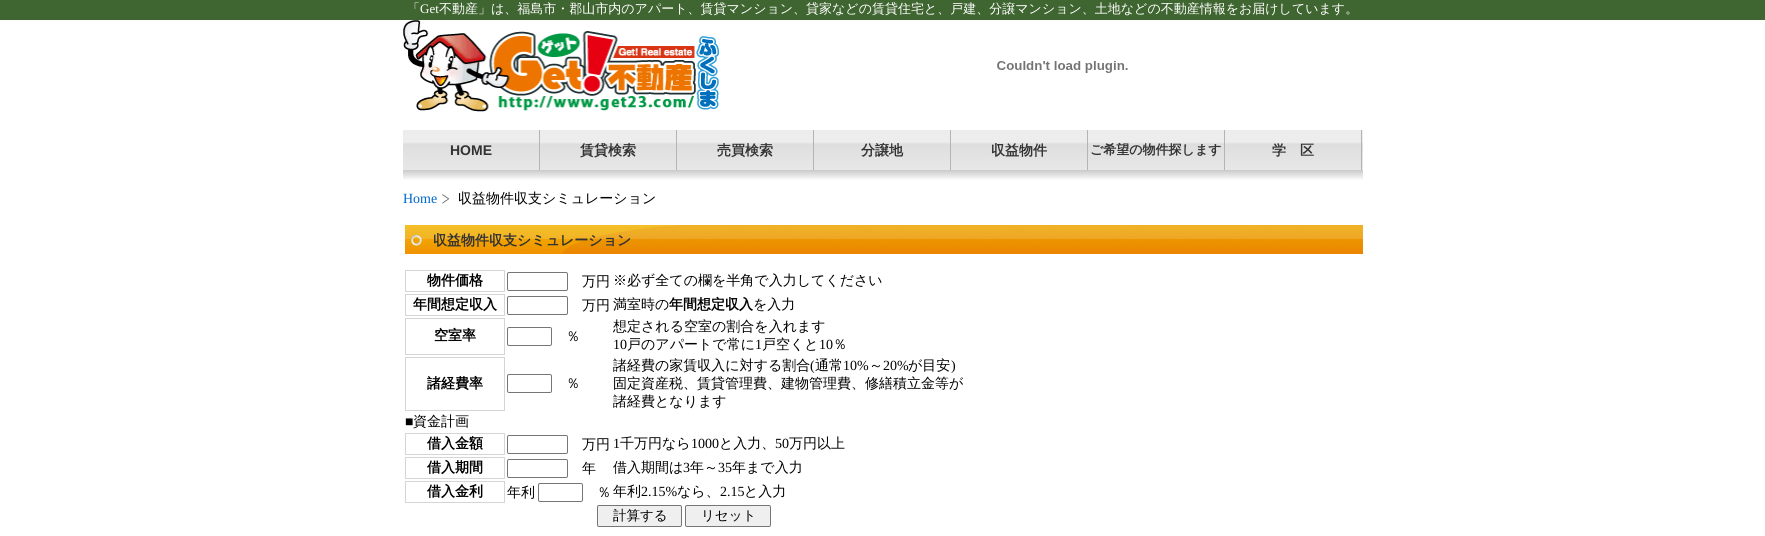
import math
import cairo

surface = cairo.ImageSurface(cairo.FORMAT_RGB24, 1765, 536)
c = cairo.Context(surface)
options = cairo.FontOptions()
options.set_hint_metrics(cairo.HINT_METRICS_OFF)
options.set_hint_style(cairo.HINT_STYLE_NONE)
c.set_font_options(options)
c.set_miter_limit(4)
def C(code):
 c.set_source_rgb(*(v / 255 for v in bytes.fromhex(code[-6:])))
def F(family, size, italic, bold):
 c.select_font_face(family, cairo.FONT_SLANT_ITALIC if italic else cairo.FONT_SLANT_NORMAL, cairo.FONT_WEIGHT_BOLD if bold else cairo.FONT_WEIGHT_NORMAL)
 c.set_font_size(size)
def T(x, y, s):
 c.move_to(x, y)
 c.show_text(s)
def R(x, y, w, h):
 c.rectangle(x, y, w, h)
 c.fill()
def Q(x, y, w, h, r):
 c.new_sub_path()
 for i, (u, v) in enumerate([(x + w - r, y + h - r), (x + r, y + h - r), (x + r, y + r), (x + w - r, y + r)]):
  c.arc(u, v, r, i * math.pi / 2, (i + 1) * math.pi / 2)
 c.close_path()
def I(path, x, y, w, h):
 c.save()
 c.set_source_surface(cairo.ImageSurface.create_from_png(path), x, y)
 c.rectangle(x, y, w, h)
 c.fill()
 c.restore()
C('ffffff')
c.paint()
C('3f6530')
R(0,0,1765,20)
F('WenQuanYi Zen Hei Medium',13,0,0)
C('ffffff')
T(407,13,'「')
F('Liberation Serif',13,0,0)
T(420,13,'Get')
F('WenQuanYi Zen Hei Medium',13,0,0)
T(439,13,'不動産」は、福島市・郡山市内のアパート、賃貸マンション、貸家などの賃貸住宅と、戸建、分譲マンション、土地などの不動産情報をお届けしています。')
I('1.png',403,20,316,92)
I('2.png',997,61,131,12)
I('3.png',403,130,960,40)
C('b4b4b4')
R(539,130,1,40)
F('Liberation Sans',14,0,1)
C('333333')
T(450,155,'HOME')
C('b4b4b4')
R(676,130,1,40)
F('WenQuanYi Zen Hei',14,0,1)
C('333333')
T(580,155,'賃貸検索')
C('b4b4b4')
R(813,130,1,40)
C('333333')
T(717,155,'売買検索')
C('b4b4b4')
R(950,130,1,40)
C('333333')
T(861,155,'分譲地')
C('b4b4b4')
R(1087,130,1,40)
C('333333')
T(991,155,'収益物件')
C('b4b4b4')
R(1224,130,1,40)
F('WenQuanYi Zen Hei',13,0,1)
C('333333')
T(1090,154,'ご希望の物件探します')
C('b4b4b4')
R(1361,130,1,40)
F('WenQuanYi Zen Hei',14,0,1)
C('333333')
T(1272,155,'学　区')
I('4.png',403,170,960,10)
F('Liberation Serif',14,0,0)
C('0066cc')
T(403,203,'Home')
I('5.png',442,194,8,10)
F('WenQuanYi Zen Hei Medium',14,0,0)
C('000000')
T(458,203,'収益物件収支シミュレーション')
I('6.png',405,225,958,29)
F('WenQuanYi Zen Hei',14,0,1)
C('333333')
T(433,245,'収益物件収支シミュレーション')
c.rectangle(405.5,270.5,99,21)
C('d5d5d5')
c.set_line_width(1)
c.stroke()
C('000000')
T(427,285,'物件価格')
Q(507.5,272.5,60,18,1.5)
C('767676')
c.stroke()
F('WenQuanYi Zen Hei Medium',14,0,0)
C('000000')
T(582,286,'万円')
T(613,285,'※必ず全ての欄を半角で入力してください')
c.rectangle(405.5,294.5,99,21)
C('d5d5d5')
c.stroke()
F('WenQuanYi Zen Hei',14,0,1)
C('000000')
T(413,309,'年間想定収入')
Q(507.5,296.5,60,18,1.5)
C('767676')
c.stroke()
F('WenQuanYi Zen Hei Medium',14,0,0)
C('000000')
T(582,310,'万円')
T(613,309,'満室時の')
F('WenQuanYi Zen Hei',14,0,1)
T(669,309,'年間想定収入')
F('WenQuanYi Zen Hei Medium',14,0,0)
T(753,309,'を入力')
c.rectangle(405.5,318.5,99,36)
C('d5d5d5')
c.stroke()
F('WenQuanYi Zen Hei',14,0,1)
C('000000')
T(434,340,'空室率')
Q(507.5,327.5,44,18,1.5)
C('767676')
c.stroke()
F('WenQuanYi Zen Hei Medium',14,0,0)
C('000000')
T(566,341,'％')
T(613,331,'想定される空室の割合を入れます')
F('Liberation Serif',14,0,0)
T(613,349,'10')
F('WenQuanYi Zen Hei Medium',14,0,0)
T(627,349,'戸のアパートで常に')
F('Liberation Serif',14,0,0)
T(755,349,'1')
F('WenQuanYi Zen Hei Medium',14,0,0)
T(762,349,'戸空くと')
F('Liberation Serif',14,0,0)
T(819,349,'10')
F('WenQuanYi Zen Hei Medium',14,0,0)
T(833,349,'％')
c.rectangle(405.5,357.5,99,53)
C('d5d5d5')
c.stroke()
F('WenQuanYi Zen Hei',14,0,1)
C('000000')
T(427,388,'諸経費率')
Q(507.5,374.5,44,18,1.5)
C('767676')
c.stroke()
F('WenQuanYi Zen Hei Medium',14,0,0)
C('000000')
T(566,388,'％')
T(613,370,'諸経費の家賃収入に対する割合')
F('Liberation Serif',14,0,0)
T(810,370,'(')
F('WenQuanYi Zen Hei Medium',14,0,0)
T(815,370,'通常')
F('Liberation Serif',14,0,0)
T(843,370,'10%')
F('WenQuanYi Zen Hei Medium',14,0,0)
T(869,370,'～')
F('Liberation Serif',14,0,0)
T(883,370,'20%')
F('WenQuanYi Zen Hei Medium',14,0,0)
T(908,370,'が目安')
F('Liberation Serif',14,0,0)
T(951,370,')')
F('WenQuanYi Zen Hei Medium',14,0,0)
T(613,388,'固定資産税、賃貸管理費、建物管理費、修繕積立金等が')
T(613,406,'諸経費となります')
F('Liberation Serif',14,0,0)
T(405,426,'■')
F('WenQuanYi Zen Hei Medium',14,0,0)
T(413,426,'資金計画')
c.rectangle(405.5,433.5,99,21)
C('d5d5d5')
c.stroke()
F('WenQuanYi Zen Hei',14,0,1)
C('000000')
T(427,448,'借入金額')
Q(507.5,435.5,60,18,1.5)
C('767676')
c.stroke()
F('WenQuanYi Zen Hei Medium',14,0,0)
C('000000')
T(582,449,'万円')
F('Liberation Serif',14,0,0)
T(613,448,'1')
F('WenQuanYi Zen Hei Medium',14,0,0)
T(620,448,'千万円なら')
F('Liberation Serif',14,0,0)
T(691,448,'1000')
F('WenQuanYi Zen Hei Medium',14,0,0)
T(719,448,'と入力、')
F('Liberation Serif',14,0,0)
T(775,448,'50')
F('WenQuanYi Zen Hei Medium',14,0,0)
T(789,448,'万円以上')
c.rectangle(405.5,457.5,99,21)
C('d5d5d5')
c.stroke()
F('WenQuanYi Zen Hei',14,0,1)
C('000000')
T(427,472,'借入期間')
Q(507.5,459.5,60,18,1.5)
C('767676')
c.stroke()
F('WenQuanYi Zen Hei Medium',14,0,0)
C('000000')
T(582,473,'年')
T(613,472,'借入期間は')
F('Liberation Serif',14,0,0)
T(683,472,'3')
F('WenQuanYi Zen Hei Medium',14,0,0)
T(690,472,'年～')
F('Liberation Serif',14,0,0)
T(718,472,'35')
F('WenQuanYi Zen Hei Medium',14,0,0)
T(732,472,'年まで入力')
c.rectangle(405.5,481.5,99,21)
C('d5d5d5')
c.stroke()
F('WenQuanYi Zen Hei',14,0,1)
C('000000')
T(427,496,'借入金利')
F('WenQuanYi Zen Hei Medium',14,0,0)
T(507,497,'年利')
Q(538.5,483.5,44,18,1.5)
C('767676')
c.stroke()
C('000000')
T(597,497,'％')
T(613,496,'年利')
F('Liberation Serif',14,0,0)
T(641,496,'2.15%')
F('WenQuanYi Zen Hei Medium',14,0,0)
T(677,496,'なら、')
F('Liberation Serif',14,0,0)
T(720,496,'2.15')
F('WenQuanYi Zen Hei Medium',14,0,0)
T(744,496,'と入力')
C('efefef')
Q(597.5,505.5,84,21,1.5)
c.fill_preserve()
C('767676')
c.stroke()
F('WenQuanYi Zen Hei Medium',13.5,0,0)
C('000000')
T(613,520,'計算する')
C('efefef')
Q(685.5,505.5,85,21,1.5)
c.fill_preserve()
C('767676')
c.stroke()
C('000000')
T(701,520,'リセット')
surface.write_to_png('o.png')
